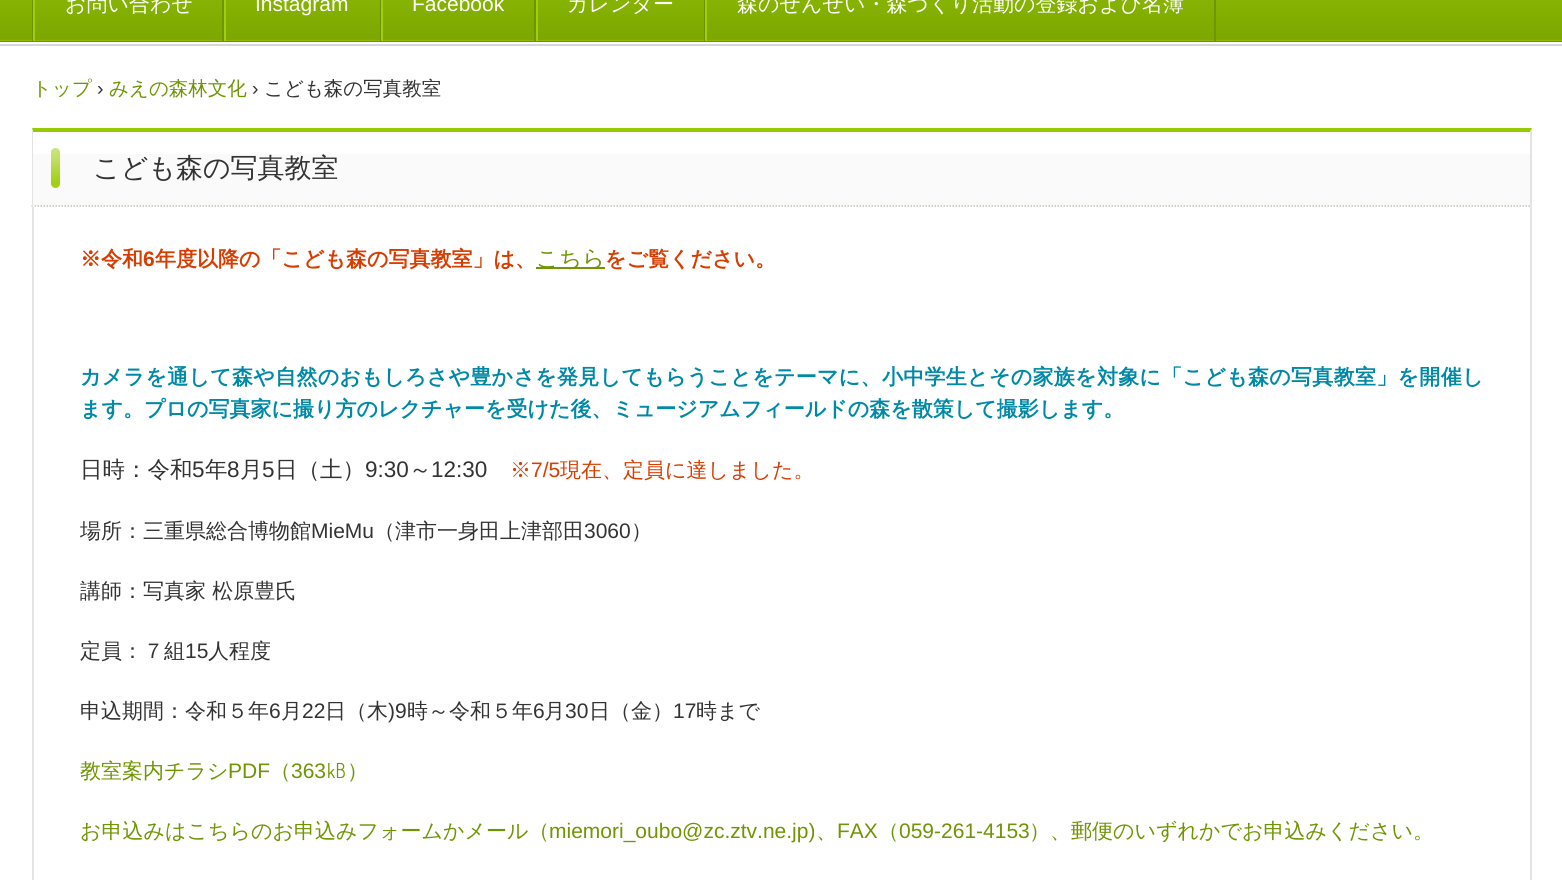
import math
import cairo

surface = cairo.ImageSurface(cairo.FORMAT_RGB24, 1562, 880)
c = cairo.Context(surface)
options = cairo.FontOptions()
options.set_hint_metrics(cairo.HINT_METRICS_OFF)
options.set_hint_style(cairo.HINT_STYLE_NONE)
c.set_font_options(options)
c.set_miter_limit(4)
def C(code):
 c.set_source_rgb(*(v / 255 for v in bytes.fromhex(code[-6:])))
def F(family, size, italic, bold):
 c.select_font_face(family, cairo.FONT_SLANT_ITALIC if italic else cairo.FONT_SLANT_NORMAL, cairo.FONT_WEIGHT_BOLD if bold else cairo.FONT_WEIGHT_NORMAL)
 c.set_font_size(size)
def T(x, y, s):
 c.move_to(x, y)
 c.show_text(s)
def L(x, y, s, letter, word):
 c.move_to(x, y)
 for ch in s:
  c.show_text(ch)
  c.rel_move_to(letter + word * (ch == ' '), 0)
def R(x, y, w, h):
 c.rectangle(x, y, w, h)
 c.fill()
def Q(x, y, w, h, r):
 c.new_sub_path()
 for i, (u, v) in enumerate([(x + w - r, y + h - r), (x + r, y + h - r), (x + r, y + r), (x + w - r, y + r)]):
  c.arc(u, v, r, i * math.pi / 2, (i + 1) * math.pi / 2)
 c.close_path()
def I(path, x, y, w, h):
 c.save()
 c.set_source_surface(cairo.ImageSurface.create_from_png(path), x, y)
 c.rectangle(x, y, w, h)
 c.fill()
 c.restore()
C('ffffff')
c.paint()
I('1.png',0,0,1562,41)
C('d7d7d7')
R(0,44,1562,2)
C('6f9501')
R(32,0,1,41)
R(222,0,2,41)
C('9ecd12')
R(33,0,2,41)
F('WenQuanYi Zen Hei Medium',21,0,0)
C('ffffff')
T(65,11,'お問い合わせ')
C('6f9501')
R(380,0,1,41)
C('9ecd12')
R(224,0,2,41)
F('Liberation Sans',21,0,0)
C('ffffff')
T(255,11,'Instagram')
C('6f9501')
R(534,0,2,41)
C('9ecd12')
R(381,0,2,41)
C('ffffff')
T(412,11,'Facebook')
C('6f9501')
R(704,0,1,41)
C('9ecd12')
R(536,0,2,41)
F('WenQuanYi Zen Hei Medium',21,0,0)
C('ffffff')
T(567,11,'カレンダー')
C('6f9501')
R(1214,0,2,41)
C('9ecd12')
R(705,0,2,41)
C('ffffff')
T(737,11,'森のせんせい・森づくり活動の登録および名簿')
C('6f9501')
R(0,41,1562,1)
F('WenQuanYi Zen Hei Medium',19.5,0,0)
C('6f9502')
T(32,95,'トップ')
F('Liberation Sans',19.5,0,0)
C('333333')
T(97,95,'›')
F('WenQuanYi Zen Hei Medium',19.5,0,0)
C('6f9502')
T(109,95,'みえの森林文化')
F('Liberation Sans',19.5,0,0)
C('333333')
T(252,95,'›')
F('WenQuanYi Zen Hei Medium',19.5,0,0)
T(264,95,'こども森の写真教室')
C('fafafa')
R(33,154,1497,52)
C('97ca00')
c.new_path()
c.move_to(32,128)
c.line_to(1532,128)
c.line_to(1530,132)
c.line_to(33,132)
c.close_path()
c.fill()
C('e3e3e3')
c.new_path()
c.move_to(1532,128)
c.line_to(1532,207)
c.line_to(1530,206)
c.line_to(1530,132)
c.close_path()
c.fill()
c.new_path()
c.move_to(31.5,206)
c.line_to(1531.5,206)
C('c3c0b3')
c.set_line_width(1.5)
c.set_dash([1.5,1.5])
c.stroke()
C('e3e3e3')
c.new_path()
c.move_to(32,207)
c.line_to(32,128)
c.line_to(33,132)
c.line_to(33,206)
c.close_path()
c.fill()
C('a4d119')
Q(51,149,9,39,4.5)
c.fill()
I('2.png',51,148,9,38)
F('WenQuanYi Zen Hei Medium',27,0,0)
C('333333')
T(93,177,'こども森の写真教室')
C('e3e3e3')
R(1530,207,2,673)
R(32,207,2,673)
F('WenQuanYi Zen Hei',21,0,1)
C('d73c00')
T(80,266,'※令和')
F('Liberation Sans',21,0,1)
T(143,266,'6')
F('WenQuanYi Zen Hei',21,0,1)
T(155,266,'年度以降の「こども森の写真教室」は、')
C('6f9502')
R(536,267,69,2)
F('WenQuanYi Zen Hei Medium',22.5,0,0)
T(536,266,'こちら')
F('WenQuanYi Zen Hei',21,0,1)
C('d73c00')
T(605,266,'をご覧ください。')
C('0089a6')
L(80,384,'カメラを通して森や自然のおもしろさや豊かさを発見してもらうことをテーマに、小中学生とその家族を対象に「こども森の写真教室」を開催し',.3,0)
T(80,416,'ます。プロの写真家に撮り方のレクチャーを受けた後、ミュージアムフィールドの森を散策して撮影します。')
F('WenQuanYi Zen Hei Medium',22.5,0,0)
C('333333')
T(80,477,'日時：令和')
F('Liberation Sans',22.5,0,0)
T(192,477,'5')
F('WenQuanYi Zen Hei Medium',22.5,0,0)
T(205,477,'年')
F('Liberation Sans',22.5,0,0)
T(227,477,'8')
F('WenQuanYi Zen Hei Medium',22.5,0,0)
T(240,477,'月')
F('Liberation Sans',22.5,0,0)
T(262,477,'5')
F('WenQuanYi Zen Hei Medium',22.5,0,0)
T(275,477,'日（土）')
F('Liberation Sans',22.5,0,0)
T(365,477,'9:30')
F('WenQuanYi Zen Hei Medium',22.5,0,0)
T(409,477,'～')
F('Liberation Sans',22.5,0,0)
T(431,477,'12:30')
F('WenQuanYi Zen Hei Medium',21,0,0)
C('d73c00')
T(510,477,'※')
F('Liberation Sans',21,0,0)
T(531,477,'7/5')
F('WenQuanYi Zen Hei Medium',21,0,0)
T(560,477,'現在、定員に達しました。')
C('333333')
T(80,538,'場所：三重県総合博物館')
F('Liberation Sans',21,0,0)
T(311,538,'MieMu')
F('WenQuanYi Zen Hei Medium',21,0,0)
T(374,538,'（津市一身田上津部田')
F('Liberation Sans',21,0,0)
T(584,538,'3060')
F('WenQuanYi Zen Hei Medium',21,0,0)
T(631,538,'）')
T(80,598,'講師：')
T(143,598,'写真家 松原豊氏')
T(80,658,'定員：７組')
F('Liberation Sans',21,0,0)
T(185,658,'15')
F('WenQuanYi Zen Hei Medium',21,0,0)
T(208,658,'人程度')
T(80,718,'申込期間：令和５年')
F('Liberation Sans',21,0,0)
T(269,718,'6')
F('WenQuanYi Zen Hei Medium',21,0,0)
T(281,718,'月')
F('Liberation Sans',21,0,0)
T(302,718,'22')
F('WenQuanYi Zen Hei Medium',21,0,0)
T(325,718,'日（木')
F('Liberation Sans',21,0,0)
T(388,718,')9')
F('WenQuanYi Zen Hei Medium',21,0,0)
T(407,718,'時～令和５年')
F('Liberation Sans',21,0,0)
T(533,718,'6')
F('WenQuanYi Zen Hei Medium',21,0,0)
T(544,718,'月')
F('Liberation Sans',21,0,0)
T(565,718,'30')
F('WenQuanYi Zen Hei Medium',21,0,0)
T(589,718,'日（金）')
F('Liberation Sans',21,0,0)
T(673,718,'17')
F('WenQuanYi Zen Hei Medium',21,0,0)
T(696,718,'時まで')
C('6f9502')
T(80,778,'教室案内チラシ')
F('Liberation Sans',21,0,0)
T(228,778,'PDF')
F('WenQuanYi Zen Hei Medium',21,0,0)
T(270,778,'（')
F('Liberation Sans',21,0,0)
T(291,778,'363')
F('WenQuanYi Zen Hei Medium',21,0,0)
T(326,778,'㎅）')
T(80,838,'お申込みはこちらのお申込みフォームかメール（')
F('Liberation Sans',21,0,0)
T(549,838,'miemori_oubo@zc.ztv.ne.jp)')
F('WenQuanYi Zen Hei Medium',21,0,0)
T(816,838,'、')
F('Liberation Sans',21,0,0)
T(837,838,'FAX')
F('WenQuanYi Zen Hei Medium',21,0,0)
T(878,838,'（')
F('Liberation Sans',21,0,0)
T(899,838,'059-261-4153')
F('WenQuanYi Zen Hei Medium',21,0,0)
T(1029,838,'）、郵便のいずれかでお申込みください。')
surface.write_to_png('o.png')
